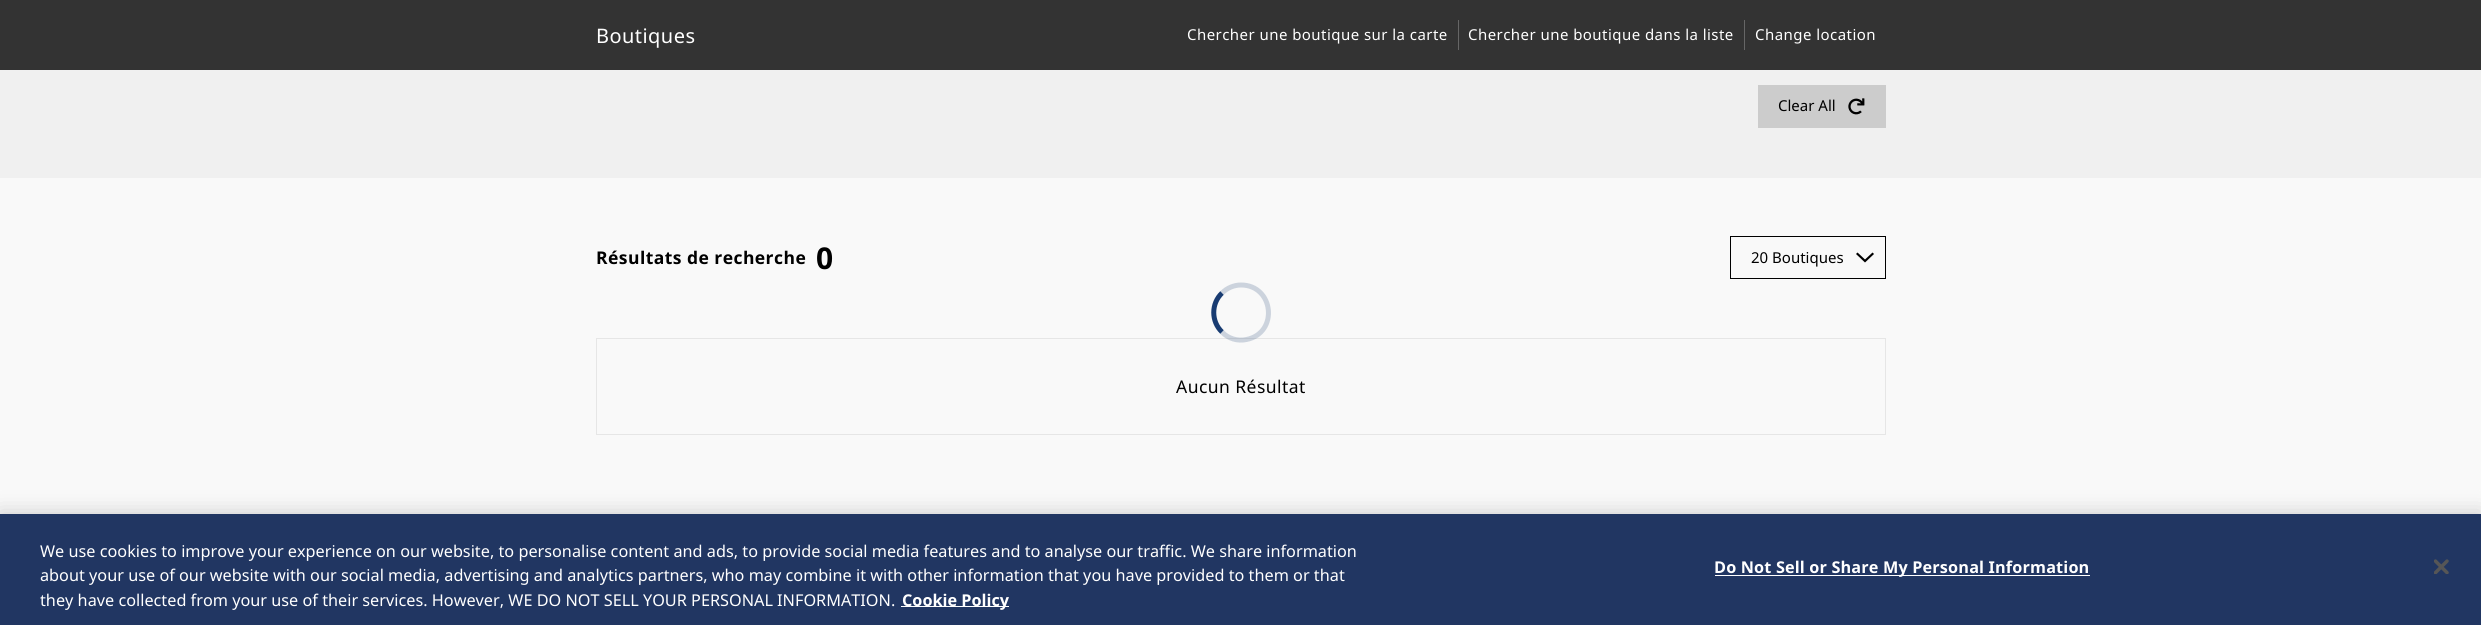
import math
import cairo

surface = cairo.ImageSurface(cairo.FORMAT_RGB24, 2481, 625)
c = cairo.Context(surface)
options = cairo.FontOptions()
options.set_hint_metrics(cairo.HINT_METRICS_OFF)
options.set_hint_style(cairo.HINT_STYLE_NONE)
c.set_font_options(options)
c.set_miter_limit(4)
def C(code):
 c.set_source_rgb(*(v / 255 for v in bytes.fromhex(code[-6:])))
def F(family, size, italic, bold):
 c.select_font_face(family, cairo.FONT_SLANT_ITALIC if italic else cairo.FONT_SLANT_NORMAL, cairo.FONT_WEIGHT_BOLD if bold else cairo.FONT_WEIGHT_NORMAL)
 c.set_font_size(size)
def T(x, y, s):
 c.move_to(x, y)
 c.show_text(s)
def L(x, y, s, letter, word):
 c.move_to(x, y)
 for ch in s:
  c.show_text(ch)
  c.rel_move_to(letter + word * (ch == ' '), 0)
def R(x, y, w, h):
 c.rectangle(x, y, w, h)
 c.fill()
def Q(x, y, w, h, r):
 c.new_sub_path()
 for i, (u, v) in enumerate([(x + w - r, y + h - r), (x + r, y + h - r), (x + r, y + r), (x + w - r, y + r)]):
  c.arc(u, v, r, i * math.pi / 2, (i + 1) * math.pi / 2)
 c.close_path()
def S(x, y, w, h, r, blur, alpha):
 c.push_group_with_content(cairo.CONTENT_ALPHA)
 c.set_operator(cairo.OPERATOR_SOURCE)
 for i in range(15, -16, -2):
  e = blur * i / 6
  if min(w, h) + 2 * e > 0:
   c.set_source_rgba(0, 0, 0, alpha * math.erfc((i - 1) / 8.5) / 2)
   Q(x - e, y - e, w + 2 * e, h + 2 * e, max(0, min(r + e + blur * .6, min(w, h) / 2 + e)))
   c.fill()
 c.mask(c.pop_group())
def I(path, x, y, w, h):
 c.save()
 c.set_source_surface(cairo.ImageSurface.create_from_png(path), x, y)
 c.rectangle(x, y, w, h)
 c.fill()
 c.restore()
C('f0f0f0')
c.paint()
C('333333')
R(0,0,2481,70)
F('Noto Sans',20,0,0)
C('ffffff')
L(596,43,'Boutiques',.45,0)
F('Noto Sans',15,0,0)
L(1187,40,'Chercher une boutique sur la carte',.45,0)
C('666666')
R(1458,20,1,30)
C('ffffff')
L(1468,40,'Chercher une boutique dans la liste',.45,0)
C('666666')
R(1744,20,1,30)
C('ffffff')
L(1755,40,'Change location',.45,0)
C('cccccc')
R(1758,85,128,43)
C('000000')
T(1778,111,'Clear All')
I('1.png',1848,98,17,17)
C('f9f9f9')
R(0,178,2481,336)
F('Noto Sans',17.5,0,1)
C('000000')
L(596,264,'Résultats de recherche',.45,0)
F('Noto Sans',30,0,1)
L(816,269,'0',3,0)
c.rectangle(1730.5,236.5,155,42)
c.set_line_width(1)
c.stroke()
F('Noto Sans',15,0,0)
T(1751,263,'20 Boutiques')
c.new_path()
c.move_to(1856,254)
c.line_to(1857.5,252.5)
c.line_to(1865,259.5)
c.line_to(1872.5,252.5)
c.line_to(1874,254)
c.line_to(1865,262.5)
c.close_path()
c.fill()
c.rectangle(596.5,338.5,1289,96)
C('e6e6e6')
c.stroke()
F('Noto Sans',17.5,0,0)
C('000000')
L(1176,393,'Aucun Résultat',.45,0)
c.new_path()
c.move_to(1222,293)
c.curve_to(1227,288,1234,285,1241,285)
c.curve_to(1274,285,1279,333,1246.5,339.5)
c.curve_to(1237.5,341.5,1228,338.5,1222,332)
c.set_source_rgba(0.098,0.235,0.447,0.2)
c.set_line_width(5)
c.stroke()
c.new_path()
c.move_to(1222,332)
c.curve_to(1211,321.5,1211,303.5,1222,293)
C('193c72')
c.stroke()
C('000000')
S(0,514,2481,111,0,11,.2)
C('213662')
R(0,514,2481,111)
F('Noto Sans',16.25,0,0)
C('ffffff')
T(40,557,'We use cookies to improve your experience on our website, to personalise content and ads, to provide social media features and to analyse our traffic. We share information')
T(40,581,'about your use of our website with our social media, advertising and analytics partners, who may combine it with other information that you have provided to them or that')
T(40,606,'they have collected from your use of their services. However, WE DO NOT SELL YOUR PERSONAL INFORMATION.')
R(901,606,108,1)
F('Noto Sans',16.25,0,1)
T(902,606,'Cookie Policy')
R(1715,575,375,1)
L(1714,573,'Do Not Sell or Share My Personal Information',.15,0)
I('2.png',2434,559,15,15)
surface.write_to_png('o.png')
